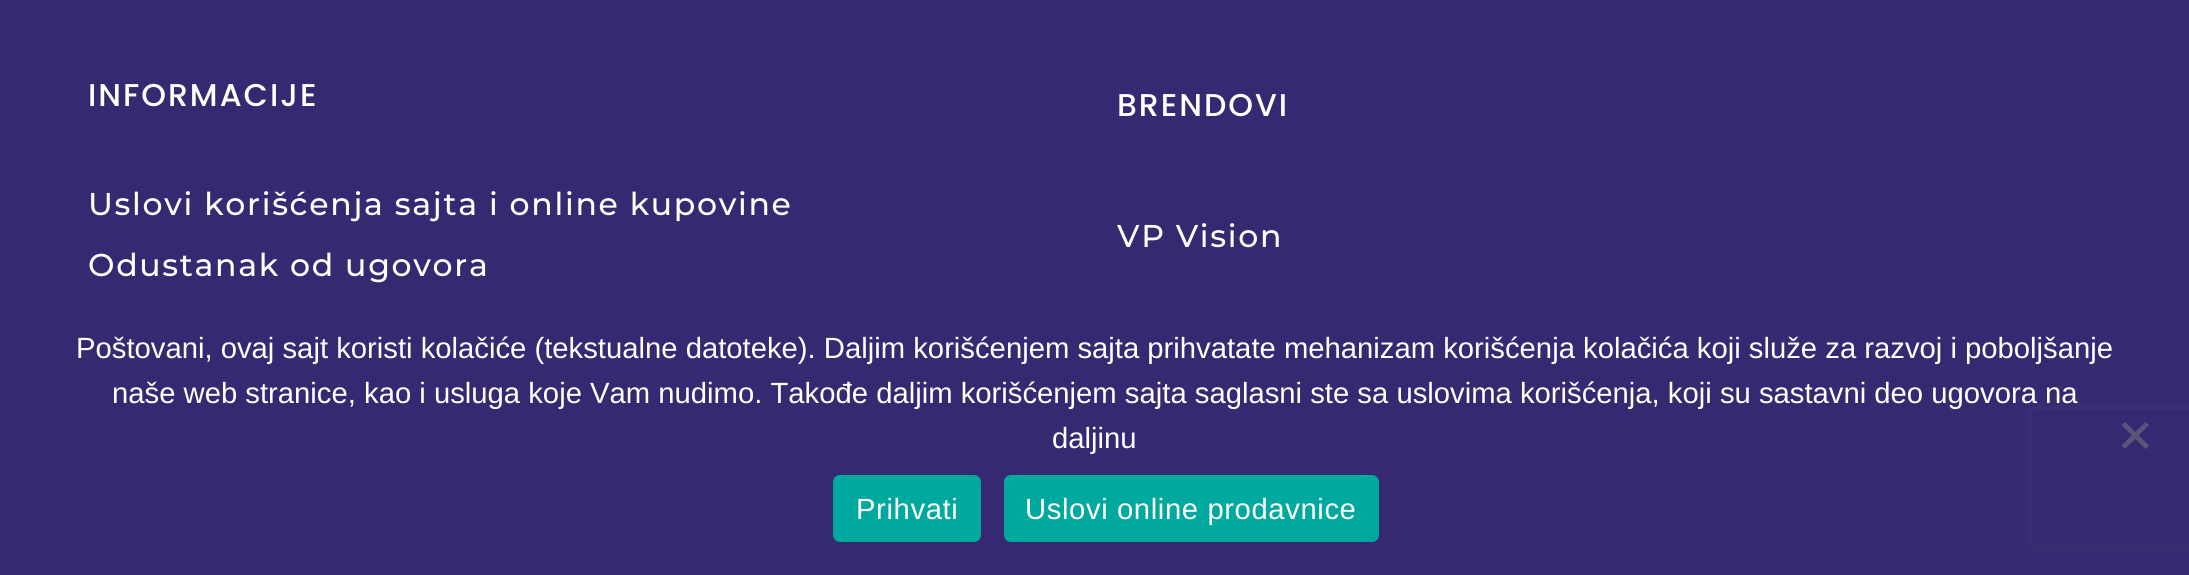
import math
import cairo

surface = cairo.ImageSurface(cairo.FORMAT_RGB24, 2189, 575)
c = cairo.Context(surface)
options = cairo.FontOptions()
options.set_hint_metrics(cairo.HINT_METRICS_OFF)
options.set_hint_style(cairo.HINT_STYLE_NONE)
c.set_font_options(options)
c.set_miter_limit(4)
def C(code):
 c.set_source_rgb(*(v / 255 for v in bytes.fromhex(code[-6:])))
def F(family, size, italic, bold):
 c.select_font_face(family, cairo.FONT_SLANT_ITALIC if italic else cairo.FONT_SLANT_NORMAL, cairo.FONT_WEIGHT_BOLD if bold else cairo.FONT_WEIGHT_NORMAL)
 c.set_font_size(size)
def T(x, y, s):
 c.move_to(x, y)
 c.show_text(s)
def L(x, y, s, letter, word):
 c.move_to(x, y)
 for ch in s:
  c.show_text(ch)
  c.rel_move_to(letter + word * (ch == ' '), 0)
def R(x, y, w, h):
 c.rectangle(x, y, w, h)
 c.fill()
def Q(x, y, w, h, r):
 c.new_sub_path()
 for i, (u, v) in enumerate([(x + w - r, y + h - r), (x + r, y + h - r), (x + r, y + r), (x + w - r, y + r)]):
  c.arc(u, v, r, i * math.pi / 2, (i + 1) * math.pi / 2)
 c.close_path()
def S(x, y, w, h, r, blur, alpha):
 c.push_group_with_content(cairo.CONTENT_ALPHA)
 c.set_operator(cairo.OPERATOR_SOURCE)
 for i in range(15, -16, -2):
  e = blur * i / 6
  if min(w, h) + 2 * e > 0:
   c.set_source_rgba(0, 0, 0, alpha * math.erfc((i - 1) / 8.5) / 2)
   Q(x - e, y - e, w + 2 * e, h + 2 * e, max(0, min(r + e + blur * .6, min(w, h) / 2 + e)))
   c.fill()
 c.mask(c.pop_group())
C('372971')
c.paint()
F('Poppins Medium',31.5,0,0)
C('ffffff')
L(88,106,'INFORMACIJE',2,0)
F('Montserrat Medium',31.5,0,0)
L(88,215,'Uslovi korišćenja sajta i online kupovine',1.7,0)
L(88,276,'Odustanak od ugovora',1.7,0)
F('Poppins Medium',31.5,0,0)
L(1117,116,'BRENDOVI',2,0)
F('Montserrat Medium',31.5,0,0)
L(1117,247,'VP Vision',1.7,0)
c.save()
c.set_fill_rule(cairo.FILL_RULE_EVEN_ODD)
c.new_path()
c.move_to(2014,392)
c.line_to(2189,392)
c.line_to(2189,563)
c.line_to(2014,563)
c.close_path()
c.move_to(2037,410)
c.line_to(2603,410)
c.curve_to(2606,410,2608,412,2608,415)
c.line_to(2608,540)
c.curve_to(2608,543,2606,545,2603,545)
c.line_to(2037,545)
c.curve_to(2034,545,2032,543,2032,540)
c.line_to(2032,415)
c.curve_to(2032,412,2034,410,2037,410)
c.close_path()
c.clip()
C('808080')
S(2032,410,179,135,5,5.5,1)
c.restore()
c.set_source_rgba(0.216,0.161,0.443,0.85)
R(2022,400,167,155)
F('Liberation Sans',29.25,0,0)
C('ffffff')
T(76,358,'Poštovani, ovaj sajt koristi kolačiće (tekstualne datoteke). Daljim korišćenjem sajta prihvatate mehanizam korišćenja kolačića koji služe za razvoj i poboljšanje')
T(112,403,'naše web stranice, kao i usluga koje Vam nudimo. Takođe daljim korišćenjem sajta saglasni ste sa uslovima korišćenja, koji su sastavni deo ugovora na')
T(1052,448,'daljinu')
C('5b5478')
c.new_path()
c.move_to(2145.5,422)
c.line_to(2149,425)
c.line_to(2125,449)
c.line_to(2121.5,445.5)
c.close_path()
c.fill()
c.new_path()
c.move_to(2121.5,425)
c.line_to(2125,422)
c.line_to(2149,445.5)
c.line_to(2145.5,449)
c.close_path()
c.fill()
C('00a99d')
Q(833,475,148,67,7)
c.fill()
C('ffffff')
L(856,519,'Prihvati',.6,0)
C('00a99d')
Q(1004,475,375,67,7)
c.fill()
C('ffffff')
L(1025,519,'Uslovi online prodavnice',.6,0)
surface.write_to_png('o.png')
